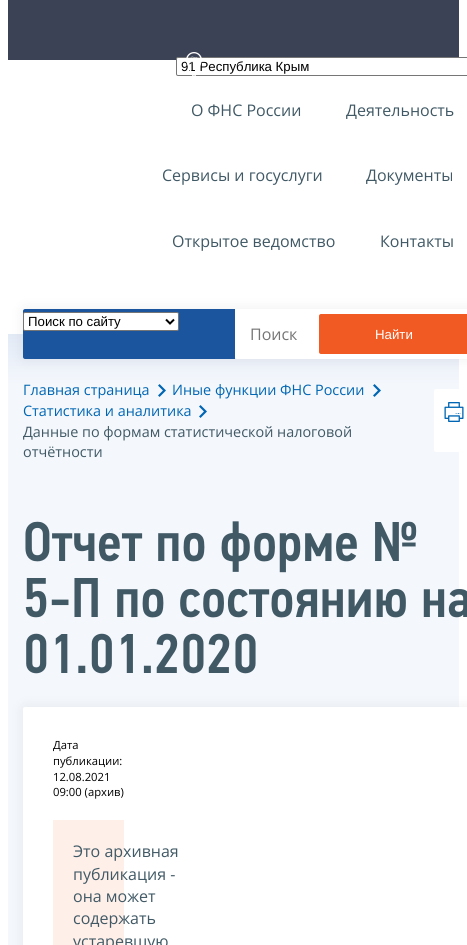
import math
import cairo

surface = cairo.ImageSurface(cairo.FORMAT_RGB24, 467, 945)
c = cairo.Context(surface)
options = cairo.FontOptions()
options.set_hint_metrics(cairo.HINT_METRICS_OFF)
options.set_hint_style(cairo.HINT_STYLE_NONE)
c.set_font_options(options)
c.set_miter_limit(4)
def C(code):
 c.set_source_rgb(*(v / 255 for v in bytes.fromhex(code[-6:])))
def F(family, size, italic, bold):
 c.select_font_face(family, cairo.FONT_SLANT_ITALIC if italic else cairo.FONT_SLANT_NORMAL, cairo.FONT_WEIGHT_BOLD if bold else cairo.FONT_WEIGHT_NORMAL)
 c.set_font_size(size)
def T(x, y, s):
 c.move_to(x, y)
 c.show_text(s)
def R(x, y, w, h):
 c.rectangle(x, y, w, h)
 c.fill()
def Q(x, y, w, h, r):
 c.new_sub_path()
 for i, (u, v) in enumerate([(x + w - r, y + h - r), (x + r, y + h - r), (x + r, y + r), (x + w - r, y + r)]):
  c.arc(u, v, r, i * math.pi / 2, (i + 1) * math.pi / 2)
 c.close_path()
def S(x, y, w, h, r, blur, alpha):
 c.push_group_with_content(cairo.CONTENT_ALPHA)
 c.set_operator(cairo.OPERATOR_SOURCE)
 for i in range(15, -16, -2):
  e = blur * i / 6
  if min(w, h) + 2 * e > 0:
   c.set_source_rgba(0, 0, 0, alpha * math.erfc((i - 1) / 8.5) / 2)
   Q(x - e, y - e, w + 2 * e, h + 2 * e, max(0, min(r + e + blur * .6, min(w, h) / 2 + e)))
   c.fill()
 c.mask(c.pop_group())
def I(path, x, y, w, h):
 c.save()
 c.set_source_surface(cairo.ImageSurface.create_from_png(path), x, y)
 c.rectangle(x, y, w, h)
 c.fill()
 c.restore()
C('ffffff')
c.paint()
C('3b4256')
R(8,0,451,60)
C('ffffff')
Q(176.5,57.5,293,18,1.5)
c.fill_preserve()
C('767676')
c.set_line_width(1)
c.stroke()
F('Liberation Sans',13.25,0,0)
C('000000')
T(181,71,'91 Республика Крым')
I('1.png',186,52,16,24)
F('Open Sans',16,0,0)
C('405965')
T(191,116,'О ФНС России')
T(346,116,'Деятельность')
T(162,181,'Сервисы и госуслуги')
T(366,181,'Документы')
T(172,247,'Открытое ведомство')
T(380,247,'Контакты')
gradient = cairo.LinearGradient(234,334,234,384)
gradient.add_color_stop_rgba(0,0.886,0.918,0.965,1)
gradient.add_color_stop_rgba(1,0.957,0.969,0.988,1)
c.set_source(gradient)
R(8,334,451,50)
C('000000')
S(23,309,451,50,2,7.5,.07)
C('1b559e')
c.new_path()
c.move_to(25,309)
c.line_to(235,309)
c.line_to(235,359)
c.line_to(25,359)
c.curve_to(24,359,23,358,23,357)
c.line_to(23,311)
c.curve_to(23,310,24,309,25,309)
c.close_path()
c.fill()
C('ffffff')
Q(23.5,312.5,155,18,1.5)
c.fill_preserve()
C('767676')
c.stroke()
c.new_path()
c.move_to(166,319.5)
c.line_to(170,323.5)
c.line_to(174,319.5)
C('000000')
c.set_line_width(2)
c.stroke()
F('Liberation Sans',13.25,0,0)
T(28,326,'Поиск по сайту')
C('ffffff')
Q(235,309,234,50,2)
c.fill()
F('Open Sans',16,0,0)
C('757575')
T(250,340,'Поиск')
C('f15a22')
Q(319,314,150,40,2)
c.fill()
F('Liberation Sans',13.25,0,0)
C('ffffff')
T(375,339,'Найти')
C('f4f7fc')
R(8,384,451,561)
F('Open Sans',14.4,0,0)
C('0066b3')
T(23,395,'Главная страница')
I('2.png',158,384,8,13)
T(172,395,'Иные функции ФНС России')
I('2.png',373,384,8,13)
T(23,416,'Статистика и аналитика')
I('2.png',199,405,8,13)
C('405965')
T(23,437,'Данные по формам статистической налоговой')
T(23,457,'отчётности')
C('ffffff')
Q(434,389,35,63,2)
c.fill()
I('3.png',444,402,20,20)
I('4.png',25,521,392,52)
I('5.png',25,578,442,40)
I('6.png',26,633,230,41)
C('000000')
S(23,707,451,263,2,7.5,.07)
C('ffffff')
Q(23,707,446,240,2)
c.fill()
F('Open Sans',11.25,0,0)
C('000000')
T(53,749,'Дата')
T(53,765,'публикации:')
T(53,781,'12.08.2021')
T(53,796,'09:00 (архив)')
C('feefe9')
R(53,820,71,125)
F('Open Sans',16,0,0)
C('405965')
T(73,857,'Это архивная')
T(73,880,'публикация -')
T(73,902,'она может')
T(73,924,'содержать')
T(73,947,'устаревшую')
surface.write_to_png('o.png')
